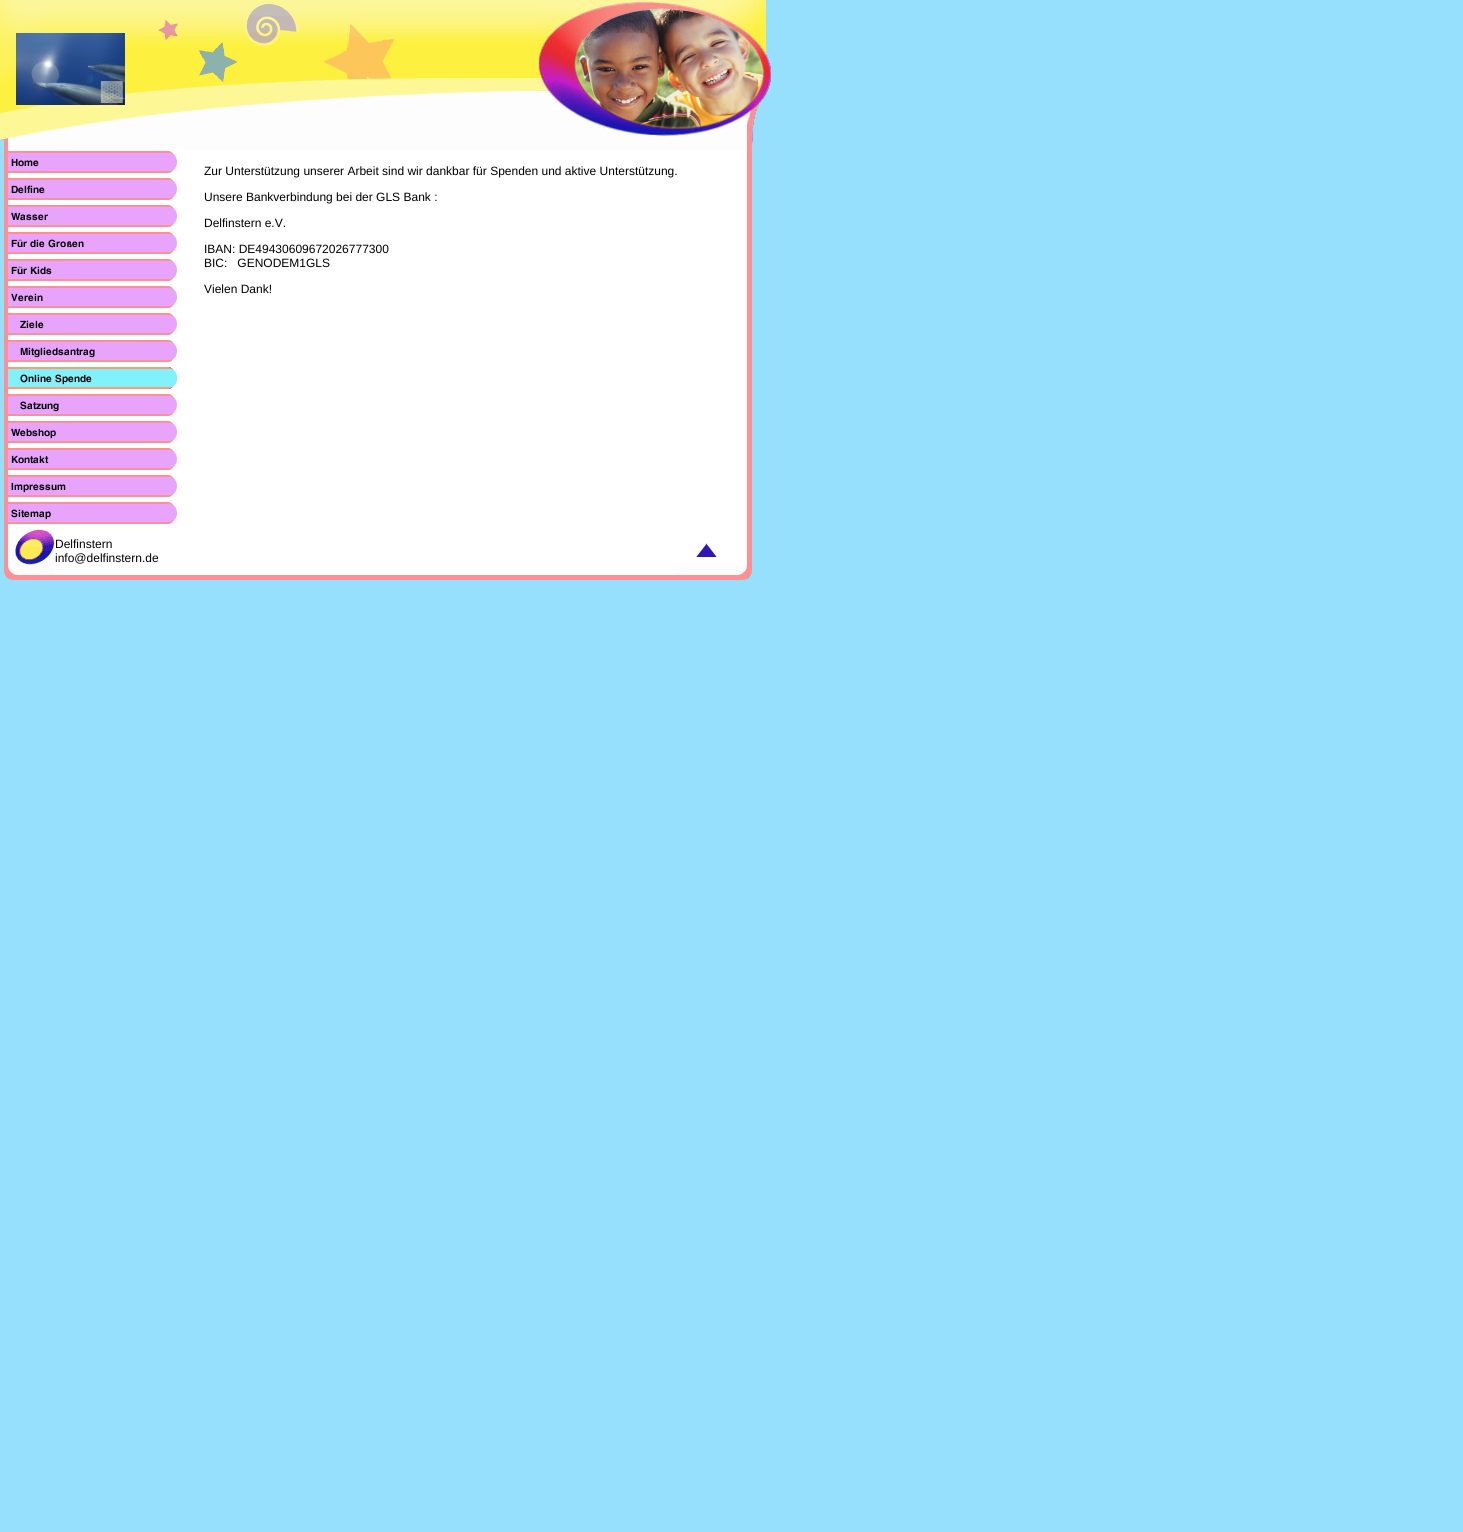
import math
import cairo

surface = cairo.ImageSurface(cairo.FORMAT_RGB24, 1463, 1532)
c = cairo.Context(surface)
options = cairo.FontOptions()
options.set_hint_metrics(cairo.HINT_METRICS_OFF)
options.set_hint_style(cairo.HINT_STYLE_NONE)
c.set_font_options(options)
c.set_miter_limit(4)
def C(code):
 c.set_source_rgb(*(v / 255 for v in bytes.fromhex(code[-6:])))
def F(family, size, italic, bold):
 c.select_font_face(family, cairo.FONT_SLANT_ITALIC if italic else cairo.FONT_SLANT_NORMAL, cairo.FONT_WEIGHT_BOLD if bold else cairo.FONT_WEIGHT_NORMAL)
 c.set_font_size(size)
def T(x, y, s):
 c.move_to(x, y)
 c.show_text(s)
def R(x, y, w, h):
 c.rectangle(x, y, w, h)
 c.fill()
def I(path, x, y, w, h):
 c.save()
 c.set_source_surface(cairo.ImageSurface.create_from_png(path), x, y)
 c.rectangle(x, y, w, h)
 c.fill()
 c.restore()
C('97e0fd')
c.paint()
I('1.png',143,0,395,151)
I('2.png',0,0,359,32)
I('3.png',538,0,233,151)
I('4.png',0,32,143,119)
I('5.png',16,33,109,72)
I('6.png',143,32,371,85)
C('ffffff')
R(8,151,739,378)
I('7.png',0,151,8,378)
I('8.png',8,151,169,22)
I('9.png',8,178,169,22)
I('10.png',8,205,169,22)
I('11.png',8,232,169,22)
I('12.png',8,259,169,22)
I('13.png',8,286,169,22)
I('14.png',8,313,169,22)
I('15.png',8,340,169,22)
I('16.png',8,367,169,22)
I('17.png',8,394,169,22)
I('18.png',8,421,169,22)
I('19.png',8,448,169,22)
I('20.png',8,475,169,22)
I('21.png',8,502,169,22)
F('Liberation Sans',12,0,0)
C('000000')
T(204,175,'Zur Unterstützung unserer Arbeit sind wir dankbar für Spenden und aktive Unterstützung.')
T(204,201,'Unsere Bankverbindung bei der GLS Bank :')
T(204,227,'Delfinstern e.V.')
T(204,253,'IBAN: DE49430609672026777300')
T(204,267,'BIC:   GENODEM1GLS')
T(204,293,'Vielen Dank!')
C('fd9095')
R(747,151,5,419)
I('22.png',747,570,5,10)
I('23.png',4,529,11,36)
I('24.png',15,529,40,36)
C('ffffff')
R(55,529,692,36)
C('000000')
T(55,548,'Delfinstern')
T(55,562,'info@delfinstern.de')
I('25.png',696,543,21,14)
I('26.png',0,565,55,15)
C('ffffff')
R(55,565,621,10)
C('fd9095')
R(55,575,621,5)
I('27.png',676,565,71,15)
surface.write_to_png('o.png')
